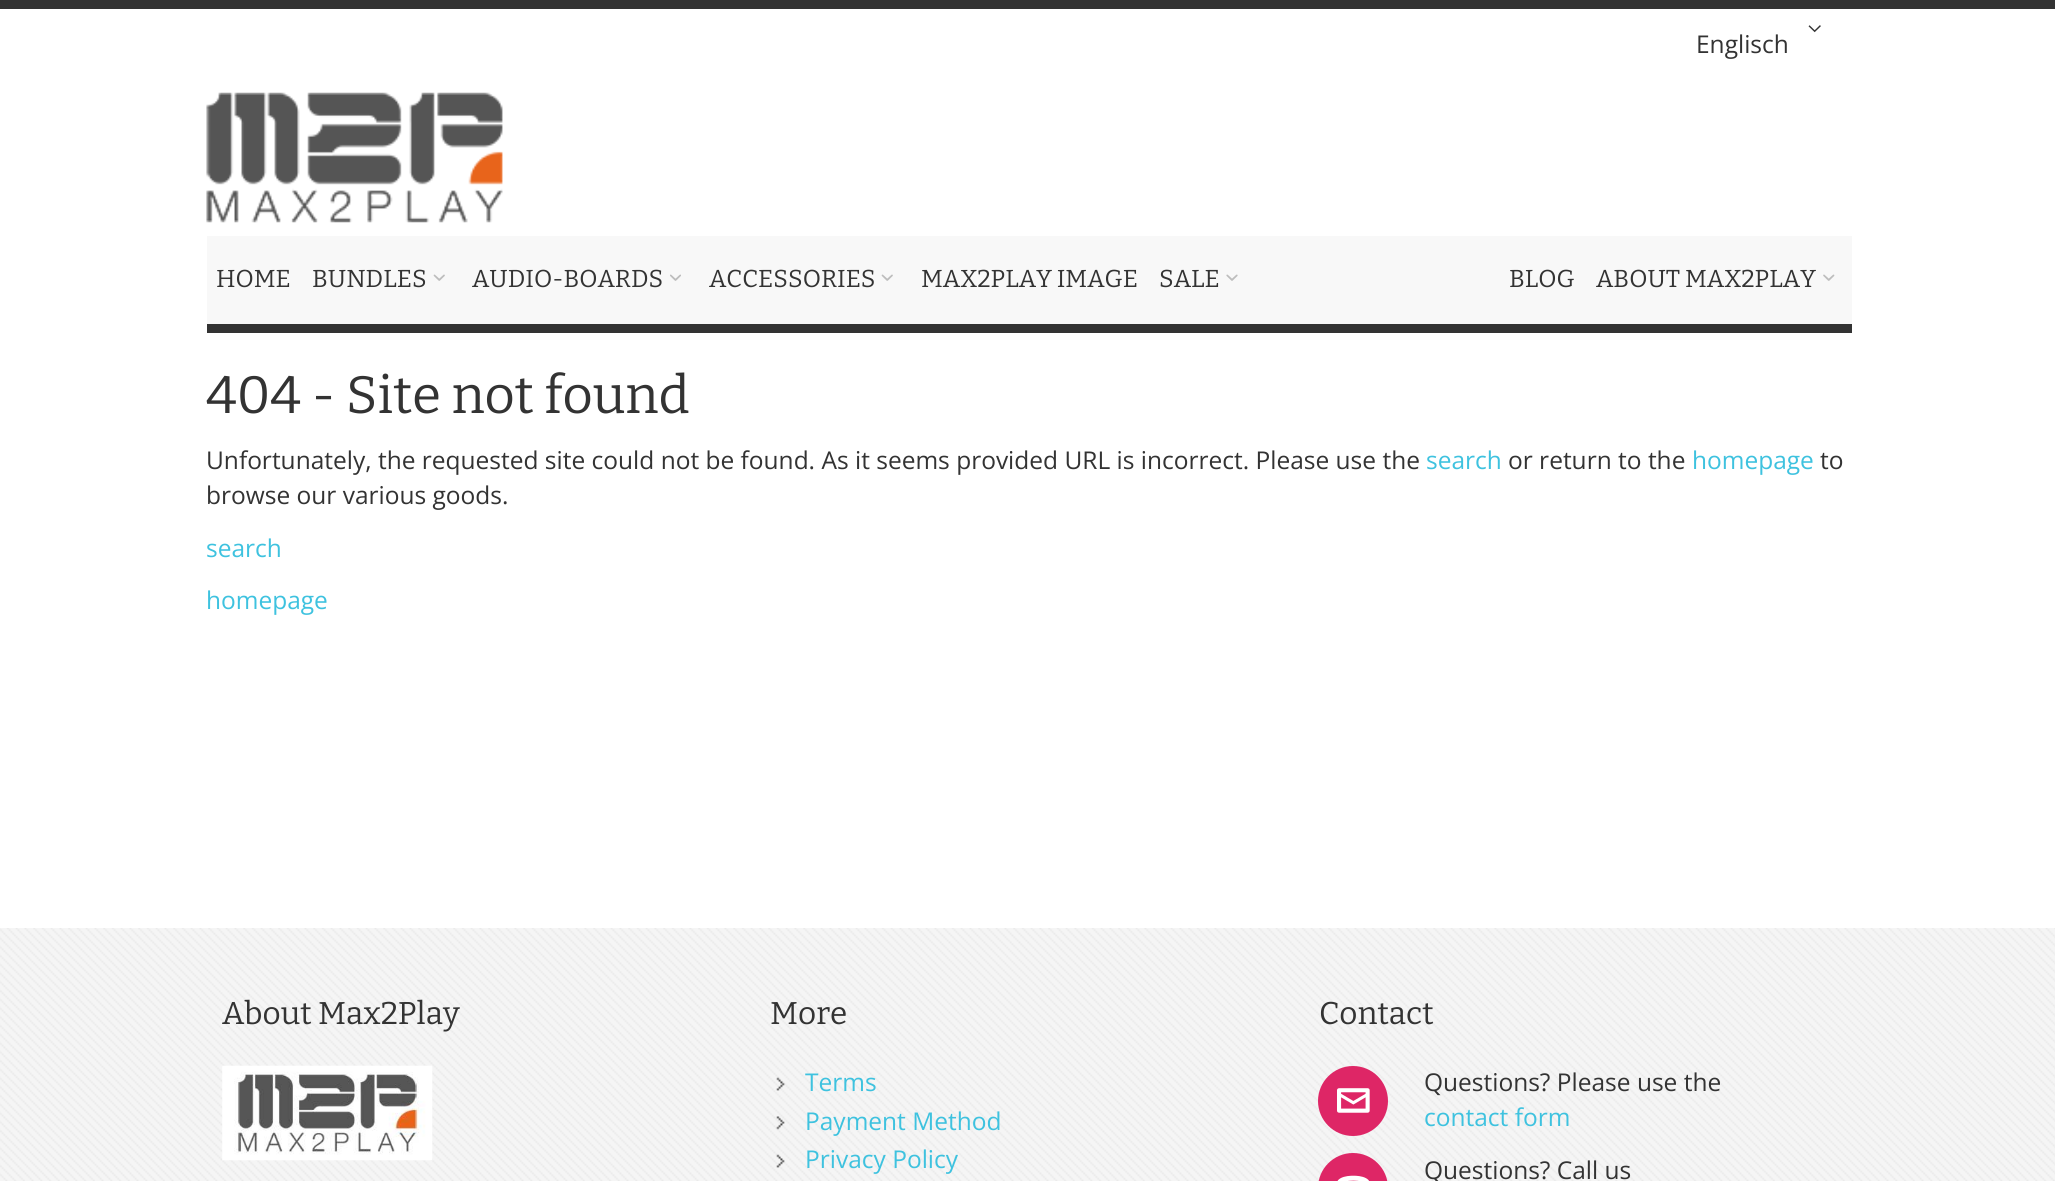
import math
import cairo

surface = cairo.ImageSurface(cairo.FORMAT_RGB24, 2055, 1181)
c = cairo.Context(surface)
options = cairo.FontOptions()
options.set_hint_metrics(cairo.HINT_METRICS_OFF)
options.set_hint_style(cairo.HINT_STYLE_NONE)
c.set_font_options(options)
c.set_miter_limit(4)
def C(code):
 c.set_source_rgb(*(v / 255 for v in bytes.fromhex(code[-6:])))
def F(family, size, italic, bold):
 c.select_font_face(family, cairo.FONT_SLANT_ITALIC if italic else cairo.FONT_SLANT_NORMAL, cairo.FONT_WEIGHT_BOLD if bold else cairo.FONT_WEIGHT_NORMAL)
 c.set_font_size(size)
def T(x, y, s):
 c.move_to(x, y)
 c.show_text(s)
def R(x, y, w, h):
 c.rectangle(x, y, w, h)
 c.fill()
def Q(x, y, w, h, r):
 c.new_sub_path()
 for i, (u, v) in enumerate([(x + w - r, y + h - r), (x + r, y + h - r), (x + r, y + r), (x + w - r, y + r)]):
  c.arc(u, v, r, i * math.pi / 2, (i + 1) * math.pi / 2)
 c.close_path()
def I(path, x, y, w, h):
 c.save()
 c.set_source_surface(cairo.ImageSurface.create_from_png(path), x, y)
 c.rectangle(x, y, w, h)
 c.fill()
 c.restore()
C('ffffff')
c.paint()
C('333333')
R(0,0,2055,9)
I('1.png',1808,25,13,8)
F('Open Sans',24.5,0,0)
T(1696,53,'Englisch')
I('2.png',206,92,297,131)
C('f8f8f8')
R(207,236,1645,88)
F('Bitter Thin',24.5,0,0)
C('333333')
T(216,287,'HOME')
T(312,287,'BUNDLES')
I('3.png',433,274,12,7)
T(472,287,'AUDIO-BOARDS')
I('4.png',670,274,11,7)
T(709,287,'ACCESSORIES')
I('3.png',881,274,12,7)
T(921,287,'MAX2PLAY IMAGE')
T(1159,287,'SALE')
I('5.png',1226,274,12,7)
T(1509,287,'BLOG')
T(1596,287,'ABOUT MAX2PLAY')
I('6.png',1823,274,12,7)
R(207,324,1645,9)
F('Bitter Thin',52.5,0,0)
T(206,413,'404 - Site not found')
F('Open Sans',24.5,0,0)
T(206,469,'Unfortunately, the requested site could not be found. As it seems provided URL is incorrect. Please use the')
C('3ec2df')
T(1426,469,'search')
C('333333')
T(1508,469,'or return to the')
C('3ec2df')
T(1692,469,'homepage')
C('333333')
T(1820,469,'to')
T(206,504,'browse our various goods.')
C('3ec2df')
T(206,557,'search')
T(206,609,'homepage')
C('f5f5f5')
R(0,928,2055,253)
I('7.png',0,928,2055,253)
F('Bitter Thin',31.5,0,0)
C('333333')
T(222,1024,'About Max2Play')
I('8.png',222,1065,211,96)
T(770,1024,'More')
I('9.png',776,1077,9,14)
F('Open Sans',24.5,0,0)
C('3ec2df')
T(805,1091,'Terms')
I('10.png',776,1116,9,14)
T(805,1130,'Payment Method')
I('11.png',776,1154,9,14)
T(805,1168,'Privacy Policy')
F('Bitter Thin',31.5,0,0)
C('333333')
T(1319,1024,'Contact')
C('de2666')
c.new_path()
c.arc(1353,1101,35,0,2 * math.pi)
c.fill()
I('12.png',1337,1088,33,25)
F('Open Sans',24.5,0,0)
C('333333')
T(1424,1091,'Questions? Please use the')
C('3ec2df')
T(1424,1126,'contact form')
C('de2666')
Q(1318,1153,70,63,35)
c.fill()
I('13.png',1337,1175,32,6)
C('333333')
T(1424,1179,'Questions? Call us')
surface.write_to_png('o.png')
